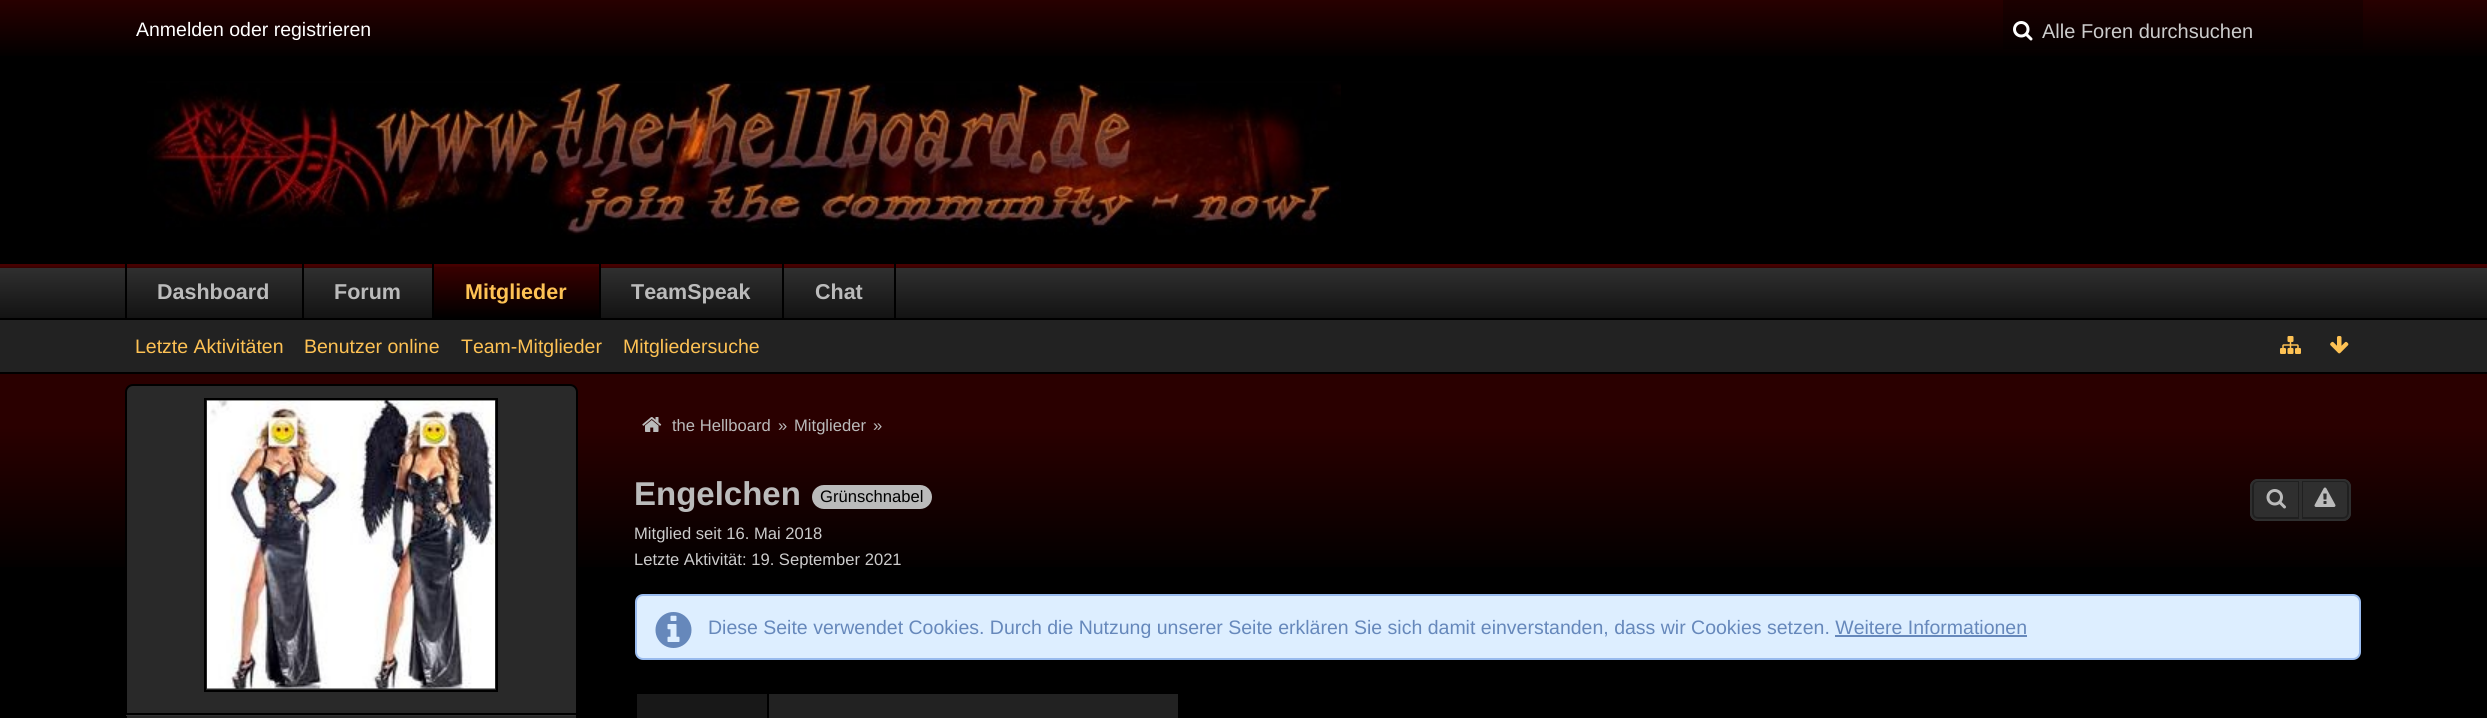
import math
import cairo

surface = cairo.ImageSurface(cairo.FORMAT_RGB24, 2487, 718)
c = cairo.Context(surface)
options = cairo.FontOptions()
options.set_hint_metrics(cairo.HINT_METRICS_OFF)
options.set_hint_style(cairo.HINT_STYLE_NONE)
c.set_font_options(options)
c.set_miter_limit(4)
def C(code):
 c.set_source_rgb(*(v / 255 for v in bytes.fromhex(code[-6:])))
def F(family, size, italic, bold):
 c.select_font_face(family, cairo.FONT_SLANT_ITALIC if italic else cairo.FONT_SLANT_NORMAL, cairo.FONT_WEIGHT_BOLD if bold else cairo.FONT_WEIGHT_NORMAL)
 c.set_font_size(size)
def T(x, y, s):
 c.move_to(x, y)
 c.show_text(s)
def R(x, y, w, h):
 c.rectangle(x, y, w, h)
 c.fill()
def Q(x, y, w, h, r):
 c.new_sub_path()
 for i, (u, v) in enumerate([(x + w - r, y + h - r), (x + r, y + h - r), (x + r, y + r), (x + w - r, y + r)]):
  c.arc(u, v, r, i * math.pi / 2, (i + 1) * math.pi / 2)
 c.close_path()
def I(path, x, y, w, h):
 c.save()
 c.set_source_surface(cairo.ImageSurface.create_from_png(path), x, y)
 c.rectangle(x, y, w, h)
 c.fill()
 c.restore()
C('000000')
c.paint()
gradient = cairo.LinearGradient(1244,0,1244,60)
gradient.add_color_stop_rgba(0,0.157,0,0,1)
gradient.add_color_stop_rgba(1,0,0,0,1)
c.set_source(gradient)
R(0,0,2487,56)
gradient = cairo.LinearGradient(1244,0,1244,60)
gradient.add_color_stop_rgba(0,0.11,0,0,1)
gradient.add_color_stop_rgba(1,0,0,0,1)
c.set_source(gradient)
R(2003,0,360,49)
F('Liberation Sans',19.5,0,0)
C('ffffff')
T(136,36,'Anmelden oder registrieren')
I('1.png',2013,21,20,20)
F('Liberation Sans',20,0,0)
C('cccccc')
T(2042,38,'Alle Foren durchsuchen')
I('2.png',147,81,1194,154)
gradient = cairo.LinearGradient(1244,264,1244,318)
gradient.add_color_stop_rgba(.03,0.275,0,0,1)
gradient.add_color_stop_rgba(.06,0.231,0,0,1)
gradient.add_color_stop_rgba(.08,0.149,0,0,1)
gradient.add_color_stop_rgba(.08,0.184,0.184,0.184,1)
gradient.add_color_stop_rgba(1,0.075,0.075,0.075,1)
c.set_source(gradient)
R(0,264,2487,54)
C('000000')
R(302,264,2,54)
R(125,264,2,54)
F('Liberation Sans',21.5,0,1)
C('bbbbbb')
T(157,299,'Dashboard')
C('000000')
R(432,264,2,54)
C('bbbbbb')
T(334,299,'Forum')
gradient = cairo.LinearGradient(516,264,516,318)
gradient.add_color_stop_rgba(.03,0.275,0,0,1)
gradient.add_color_stop_rgba(.06,0.231,0,0,1)
gradient.add_color_stop_rgba(.08,0.149,0,0,1)
gradient.add_color_stop_rgba(.08,0.216,0,0,1)
gradient.add_color_stop_rgba(1,0,0,0,1)
c.set_source(gradient)
R(434,268,165,50)
C('000000')
R(599,264,2,54)
C('fec254')
T(465,299,'Mitglieder')
C('000000')
R(782,264,2,54)
C('bbbbbb')
T(631,299,'TeamSpeak')
C('000000')
R(894,264,2,54)
C('bbbbbb')
T(815,299,'Chat')
C('222222')
R(0,320,2487,52)
F('Liberation Sans',19.5,0,0)
C('fec254')
T(135,353,'Letzte Aktivitäten')
T(304,353,'Benutzer online')
T(461,353,'Team-Mitglieder')
T(623,353,'Mitgliedersuche')
I('3.png',2280,336,21,18)
I('4.png',2330,336,19,18)
gradient = cairo.LinearGradient(1243,373,1243,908)
gradient.add_color_stop_rgba(.1,0.165,0,0,1)
gradient.add_color_stop_rgba(.38,0,0,0,1)
c.set_source(gradient)
R(0,374,2487,193)
C('292929')
Q(126,385,451,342,7)
c.fill_preserve()
C('000000')
c.stroke()
C('333333')
R(126,715,450,1)
C('000000')
R(126,713,450,2)
c.rectangle(205,399,292,292)
c.stroke()
I('5.png',207,400,288,289)
I('6.png',642,417,20,15)
F('Liberation Sans',16.6,0,0)
C('bbbbbb')
T(672,431,'the Hellboard')
T(778,431,'»')
T(794,431,'Mitglieder')
T(873,431,'»')
F('Liberation Sans',33,0,1)
T(634,505,'Engelchen')
Q(812,485,120,24,12)
c.fill()
F('Liberation Sans',16.6,0,0)
C('000000')
T(820,502,'Grünschnabel')
C('2f2f2f')
c.new_path()
c.move_to(2258,479)
c.line_to(2301,479)
c.line_to(2301,521)
c.line_to(2258,521)
c.curve_to(2253.5,521,2250,517.5,2250,513)
c.line_to(2250,487)
c.curve_to(2250,482.5,2253.5,479,2258,479)
c.close_path()
c.fill()
c.new_path()
c.move_to(2258,481)
c.line_to(2299,481)
c.line_to(2299,518)
c.line_to(2258,518)
c.curve_to(2255,518,2253,516,2253,513)
c.line_to(2253,486)
c.curve_to(2253,483,2255,481,2258,481)
c.close_path()
C('202020')
c.stroke()
c.new_path()
c.move_to(2258,480)
c.line_to(2300,480)
c.line_to(2300,520)
c.line_to(2258,520)
c.curve_to(2254,520,2251,517,2251,513)
c.line_to(2251,487)
c.curve_to(2251,483,2254,480,2258,480)
c.close_path()
C('2f2f2f')
c.stroke()
I('7.png',2266,489,20,20)
c.new_path()
c.move_to(2300,479)
c.line_to(2343,479)
c.curve_to(2347.5,479,2351,482.5,2351,487)
c.line_to(2351,513)
c.curve_to(2351,517.5,2347.5,521,2343,521)
c.line_to(2300,521)
c.close_path()
c.fill()
c.new_path()
c.move_to(2302,481)
c.line_to(2343,481)
c.curve_to(2346,481,2348,483,2348,486)
c.line_to(2348,513)
c.curve_to(2348,516,2346,518,2343,518)
c.line_to(2302,518)
c.close_path()
C('202020')
c.stroke()
c.new_path()
c.move_to(2301,480)
c.line_to(2343,480)
c.curve_to(2347,480,2350,483,2350,487)
c.line_to(2350,513)
c.curve_to(2350,517,2347,520,2343,520)
c.line_to(2301,520)
c.close_path()
C('2f2f2f')
c.stroke()
I('8.png',2314,487,22,20)
C('cccccc')
T(634,539,'Mitglied seit 16. Mai 2018')
T(634,565,'Letzte Aktivität: 19. September 2021')
C('ddeeff')
Q(636,595,1724,64,7)
c.fill_preserve()
C('99bbee')
c.stroke()
I('9.png',655,612,37,36)
F('Liberation Sans',19.5,0,0)
C('6688bb')
T(708,634,'Diese Seite verwendet Cookies. Durch die Nutzung unserer Seite erklären Sie sich damit einverstanden, dass wir Cookies setzen. Weitere Informationen')
R(1835,635,192,2)
C('222222')
R(769,694,409,24)
C('181818')
R(637,694,130,24)
surface.write_to_png('o.png')
